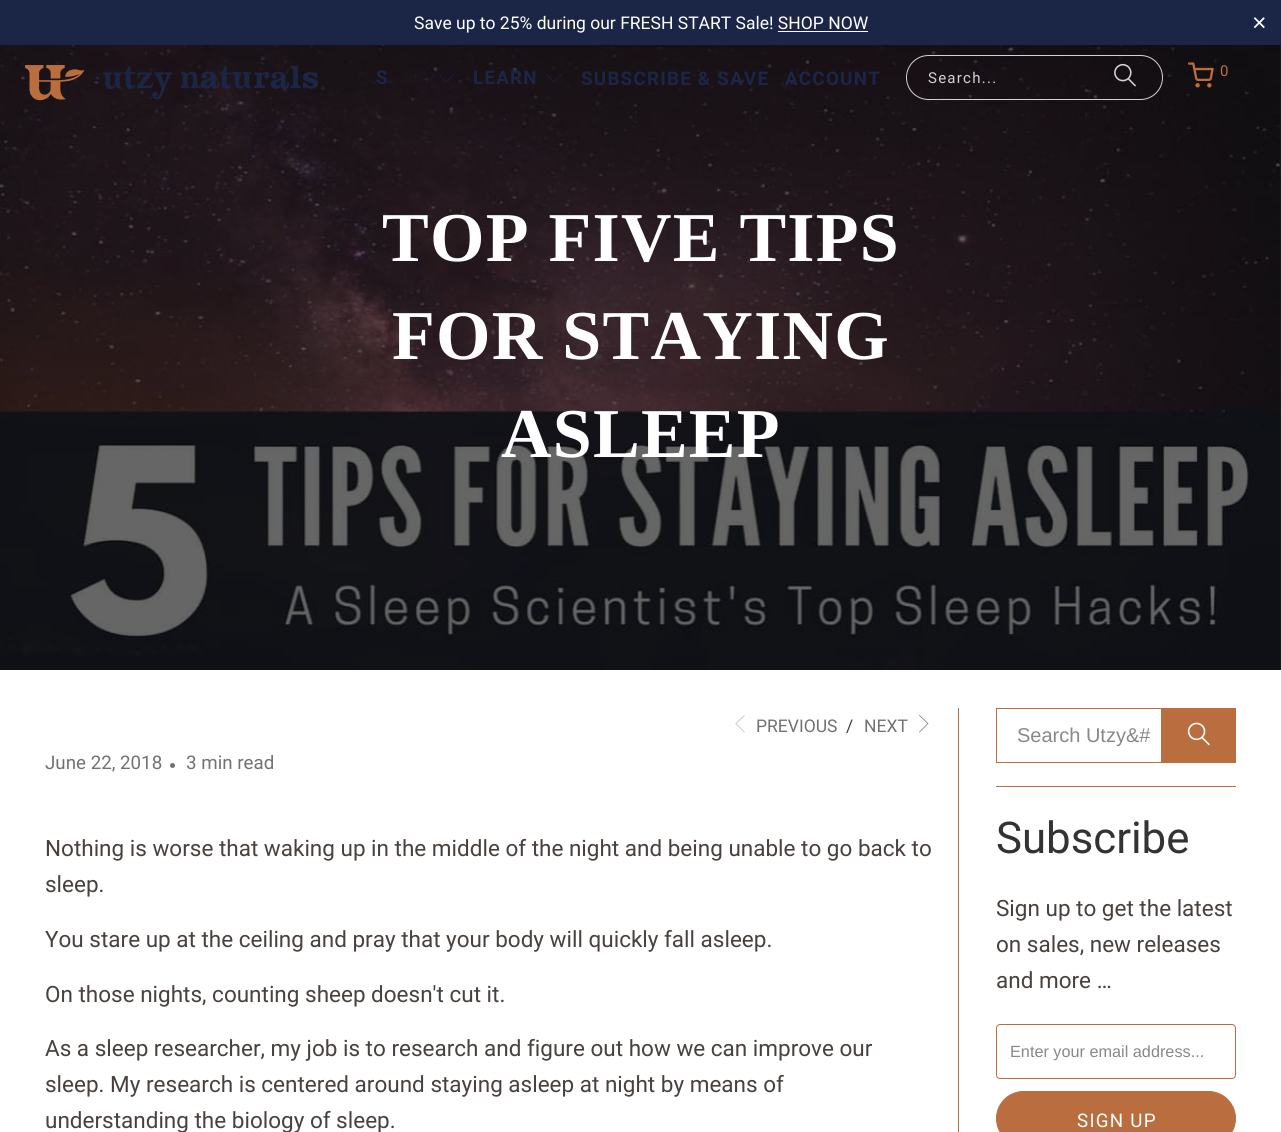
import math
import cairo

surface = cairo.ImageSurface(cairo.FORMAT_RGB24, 1281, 1132)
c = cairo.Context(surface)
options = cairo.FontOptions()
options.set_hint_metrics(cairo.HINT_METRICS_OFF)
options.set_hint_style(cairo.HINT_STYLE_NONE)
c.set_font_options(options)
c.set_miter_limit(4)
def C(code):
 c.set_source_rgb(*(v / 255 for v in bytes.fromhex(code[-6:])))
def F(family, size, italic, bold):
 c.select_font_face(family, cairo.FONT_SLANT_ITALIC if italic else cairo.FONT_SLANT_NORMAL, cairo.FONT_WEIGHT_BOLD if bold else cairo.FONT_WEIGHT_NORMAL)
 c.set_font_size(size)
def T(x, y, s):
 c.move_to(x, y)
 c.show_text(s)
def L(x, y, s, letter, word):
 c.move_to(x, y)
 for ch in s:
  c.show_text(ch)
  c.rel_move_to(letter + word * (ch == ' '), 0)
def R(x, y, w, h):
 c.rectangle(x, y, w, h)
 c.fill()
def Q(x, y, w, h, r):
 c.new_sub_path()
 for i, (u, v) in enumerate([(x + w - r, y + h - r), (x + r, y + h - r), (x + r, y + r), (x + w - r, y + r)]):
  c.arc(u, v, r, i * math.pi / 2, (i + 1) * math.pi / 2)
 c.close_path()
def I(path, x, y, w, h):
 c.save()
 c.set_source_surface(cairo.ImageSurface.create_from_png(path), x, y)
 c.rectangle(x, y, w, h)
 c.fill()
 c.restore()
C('ffffff')
c.paint()
C('1b2647')
R(0,0,1281,45)
F('Roboto',17.5,0,0)
C('ffffff')
T(414,29,'Save up to 25% during our FRESH START Sale! SHOP NOW')
R(778,31,90,1)
F('Liberation Sans',25,0,0)
T(1252,31,'×')
I('6.png',0,45,1281,625)
I('1.png',25,65,294,36)
F('Roboto',18.75,0,1)
C('1b2647')
L(376,84,'S',1.25,0)
I('2.png',439,74,15,9)
L(473,84,'LEARN',1.25,0)
I('3.png',546,74,15,9)
L(581,85,'SUBSCRIBE & SAVE',1.25,0)
L(785,85,'ACCOUNT',1.25,0)
Q(906.5,55.5,256,44,22)
C('d5d1cf')
c.set_line_width(1)
c.stroke()
F('Roboto',15,0,0)
L(928,83,'Search...',1.25,0)
I('4.png',1114,63,22,24)
I('5.png',1188,62,26,26)
C('ba6e3f')
L(1220,76,'0',2,0)
F('Liberation Serif',70,0,1)
C('ffffff')
L(382,261,'TOP FIVE TIPS',1.25,0)
L(392,359,'FOR STAYING',1.25,0)
L(501,457,'ASLEEP',1.25,0)
C('727272')
c.new_path()
c.move_to(744.5,732.5)
c.line_to(735.5,723.5)
c.line_to(744.5,715)
c.line_to(744.5,715.5)
c.line_to(736,723.5)
c.line_to(744.5,732)
c.close_path()
c.fill()
F('Roboto',17.5,0,0)
T(756,732,'PREVIOUS')
C('48413d')
T(846,732,'/')
C('727272')
T(864,732,'NEXT')
c.new_path()
c.move_to(919.5,732.5)
c.line_to(919,732)
c.line_to(927.5,723.5)
c.line_to(919,715.5)
c.line_to(919.5,715)
c.line_to(928.5,723.5)
c.close_path()
c.fill()
F('Roboto',18.75,0,0)
T(45,769,'June 22, 2018')
c.new_path()
c.arc(172.5,765.5,2.5,0,2 * math.pi)
c.fill()
T(186,769,'3 min read')
F('Roboto',22.5,0,0)
C('48413d')
T(45,856,'Nothing is worse that waking up in the middle of the night and being unable to go back to')
T(45,892,'sleep.')
T(45,947,'You stare up at the ceiling and pray that your body will quickly fall asleep.')
T(45,1002,'On those nights, counting sheep doesn\'t cut it.')
T(45,1056,'As a sleep researcher, my job is to research and figure out how we can improve our')
T(45,1092,'sleep. My research is centered around staying asleep at night by means of')
T(45,1128,'understanding the biology of sleep.')
C('ba6e3f')
R(958,708,1,424)
c.rectangle(996.5,708.5,239,54)
c.stroke()
F('Liberation Sans',20,0,0)
C('888888')
T(1017,742,'Search Utzy&#')
C('ba6e3f')
R(1161,709,74,53)
I('7.png',1187,722,23,24)
R(996,786,240,1)
F('Roboto',43.75,0,0)
C('333333')
T(996,853,'Subscribe')
F('Roboto',22.5,0,0)
C('48413d')
T(996,916,'Sign up to get the latest')
T(996,952,'on sales, new releases')
T(996,988,'and more …')
Q(996.5,1024.5,239,54,3.5)
C('ba6e3f')
c.stroke()
F('Liberation Sans',16.25,0,0)
C('888888')
T(1010,1057,'Enter your email address...')
C('ba6e3f')
Q(996.5,1091.5,239,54,27)
c.fill_preserve()
c.stroke()
F('Roboto',18.75,0,0)
C('ffffff')
L(1077,1127,'SIGN UP',1.25,0)
surface.write_to_png('o.png')
